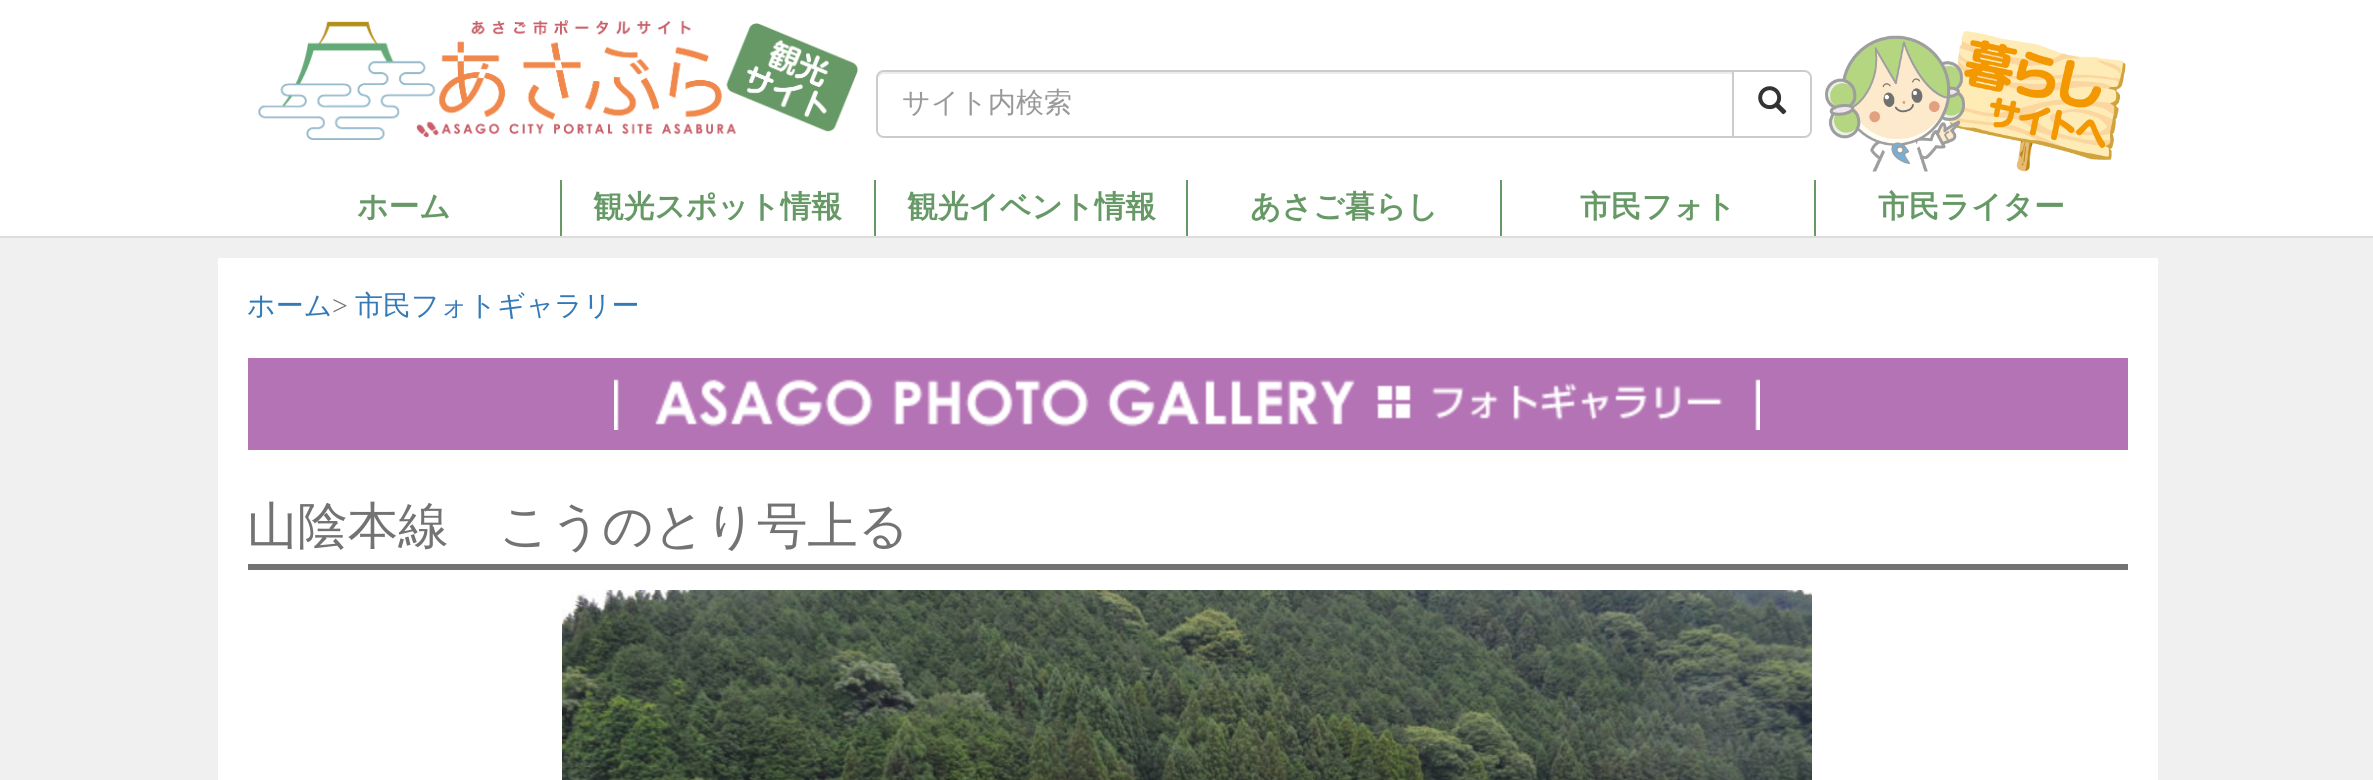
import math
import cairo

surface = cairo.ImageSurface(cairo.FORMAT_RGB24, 2373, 780)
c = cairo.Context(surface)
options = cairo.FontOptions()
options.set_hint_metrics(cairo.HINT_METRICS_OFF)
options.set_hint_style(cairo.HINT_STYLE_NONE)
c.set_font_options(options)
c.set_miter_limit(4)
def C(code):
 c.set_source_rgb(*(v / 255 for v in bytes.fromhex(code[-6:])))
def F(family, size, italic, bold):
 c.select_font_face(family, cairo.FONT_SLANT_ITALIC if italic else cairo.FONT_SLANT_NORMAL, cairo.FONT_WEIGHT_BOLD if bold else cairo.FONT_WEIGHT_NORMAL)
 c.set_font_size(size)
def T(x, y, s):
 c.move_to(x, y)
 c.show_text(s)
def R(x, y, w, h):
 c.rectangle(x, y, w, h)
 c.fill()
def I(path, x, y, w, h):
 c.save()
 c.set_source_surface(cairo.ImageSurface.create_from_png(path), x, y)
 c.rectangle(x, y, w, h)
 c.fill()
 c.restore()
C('f0f0f0')
c.paint()
C('ffffff')
R(0,0,2373,236)
C('dddddd')
R(0,236,2373,2)
I('1.png',258,20,600,120)
C('ececec')
c.new_path()
c.move_to(884,74)
c.line_to(1732,74)
c.line_to(1732,72)
c.line_to(884,72)
c.curve_to(879,72,878,76,878,80)
c.curve_to(878,77,881,74,884,74)
c.close_path()
c.fill()
c.new_path()
c.move_to(884,71)
c.line_to(1733,71)
c.line_to(1733,137)
c.line_to(884,137)
c.curve_to(880,137,877,134,877,130)
c.line_to(877,78)
c.curve_to(877,74,880,71,884,71)
c.close_path()
C('cccccc')
c.stroke()
F('WenQuanYi Zen Hei Medium',28,0,0)
C('999999')
T(902,112,'サイト内検索')
C('ffffff')
c.new_path()
c.move_to(1733,71)
c.line_to(1804,71)
c.curve_to(1808,71,1811,74,1811,78)
c.line_to(1811,130)
c.curve_to(1811,134,1808,137,1804,137)
c.line_to(1733,137)
c.close_path()
c.fill_preserve()
C('cccccc')
c.stroke()
I('2.png',1758,86,29,29)
I('3.png',1825,31,301,141)
F('WenQuanYi Zen Hei',30.75,0,1)
C('669966')
T(357,217,'ホーム')
R(560,180,2,56)
T(593,217,'観光スポット情報')
R(874,180,2,56)
T(907,217,'観光イベント情報')
R(1186,180,2,56)
T(1250,217,'あさご暮らし')
R(1500,180,2,56)
T(1580,217,'市民フォト')
R(1814,180,2,56)
T(1878,217,'市民ライター')
C('ffffff')
R(218,258,1940,522)
F('WenQuanYi Zen Hei Medium',28,0,0)
C('337ab7')
T(247,315,'ホーム')
F('Liberation Serif',28,0,0)
C('737373')
T(332,315,'>')
F('WenQuanYi Zen Hei Medium',28,0,0)
C('337ab7')
T(355,315,'市民フォトギャラリー')
C('b473b4')
R(248,358,1880,92)
I('4.png',614,379,1146,51)
C('737373')
R(248,564,1880,6)
F('WenQuanYi Zen Hei Medium',50.4,0,0)
T(247,543,'山陰本線　こうのとり号上る')
I('5.png',562,590,1250,190)
surface.write_to_png('o.png')
